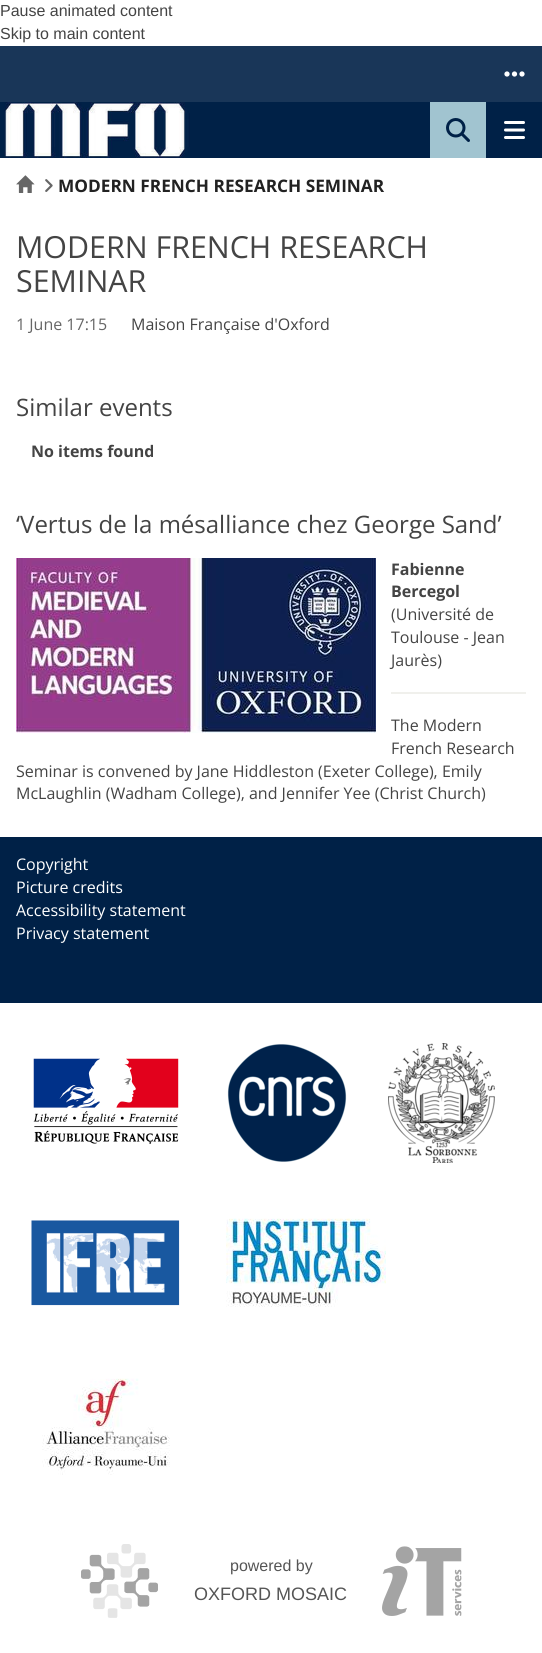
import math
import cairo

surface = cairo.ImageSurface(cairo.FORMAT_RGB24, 542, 1653)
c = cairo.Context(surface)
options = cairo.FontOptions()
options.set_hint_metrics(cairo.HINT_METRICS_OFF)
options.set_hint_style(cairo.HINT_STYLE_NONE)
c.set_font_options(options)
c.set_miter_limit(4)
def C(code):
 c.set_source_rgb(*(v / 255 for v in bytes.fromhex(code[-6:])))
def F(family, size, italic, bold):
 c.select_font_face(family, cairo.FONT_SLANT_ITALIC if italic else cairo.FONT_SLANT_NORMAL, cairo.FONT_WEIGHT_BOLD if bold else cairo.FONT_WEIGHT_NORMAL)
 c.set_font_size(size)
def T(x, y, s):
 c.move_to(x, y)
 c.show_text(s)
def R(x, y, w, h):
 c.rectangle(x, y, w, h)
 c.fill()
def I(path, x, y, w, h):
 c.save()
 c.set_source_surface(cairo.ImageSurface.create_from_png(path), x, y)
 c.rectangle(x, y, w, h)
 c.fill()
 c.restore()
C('ffffff')
c.paint()
F('Liberation Sans',16,0,0)
C('444444')
T(0,16,'Pause animated content')
T(0,39,'Skip to main content')
C('193658')
R(0,46,542,56)
I('1.png',504,71,21,6)
C('002147')
R(0,102,542,56)
I('2.png',4,102,186,56)
C('a1c4d0')
R(430,102,56,56)
I('3.png',446,118,24,24)
I('4.png',504,121,21,18)
I('5.png',16,175,19,18)
I('6.png',45,179,8,13)
F('Open Sans',17.25,0,1)
C('222222')
T(58,192,'MODERN FRENCH RESEARCH SEMINAR')
F('Open Sans',30.4,0,0)
C('444444')
T(16,258,'MODERN FRENCH RESEARCH')
T(16,292,'SEMINAR')
F('Open Sans',16,0,0)
C('666666')
T(16,330,'1 June 17:15')
C('444444')
T(131,330,'Maison Française d\'Oxford')
F('Open Sans',24,0,0)
T(16,416,'Similar events')
F('Open Sans',16,0,1)
T(31,457,'No items found')
F('Open Sans',24,0,0)
T(16,533,'‘Vertus de la mésalliance chez George Sand’')
I('7.png',16,558,360,175)
F('Open Sans',16,0,1)
T(391,575,'Fabienne')
T(391,597,'Bercegol')
F('Open Sans',16,0,0)
T(391,620,'(Université de')
T(391,643,'Toulouse - Jean')
T(391,666,'Jaurès)')
C('f0f0ec')
R(391,692,135,2)
C('444444')
T(391,731,'The Modern')
T(391,754,'French Research')
T(16,777,'Seminar is convened by Jane Hiddleston (Exeter College), Emily')
T(16,799,'McLaughlin (Wadham College), and Jennifer Yee (Christ Church)')
C('002147')
R(0,837,542,166)
C('ffffff')
T(16,870,'Copyright')
T(16,893,'Picture credits')
T(16,916,'Accessibility statement')
T(16,939,'Privacy statement')
I('8.png',33,1058,146,86)
I('9.png',227,1044,120,118)
I('10.png',388,1043,107,120)
I('11.png',31,1220,149,86)
I('12.png',226,1218,160,89)
I('13.png',42,1378,128,97)
I('14.png',81,1544,77,74)
F('Liberation Sans',16,0,0)
C('555555')
T(230,1571,'powered by')
F('Liberation Sans',18,0,0)
T(194,1600,'OXFORD MOSAIC')
I('15.png',382,1546,80,70)
surface.write_to_png('o.png')
